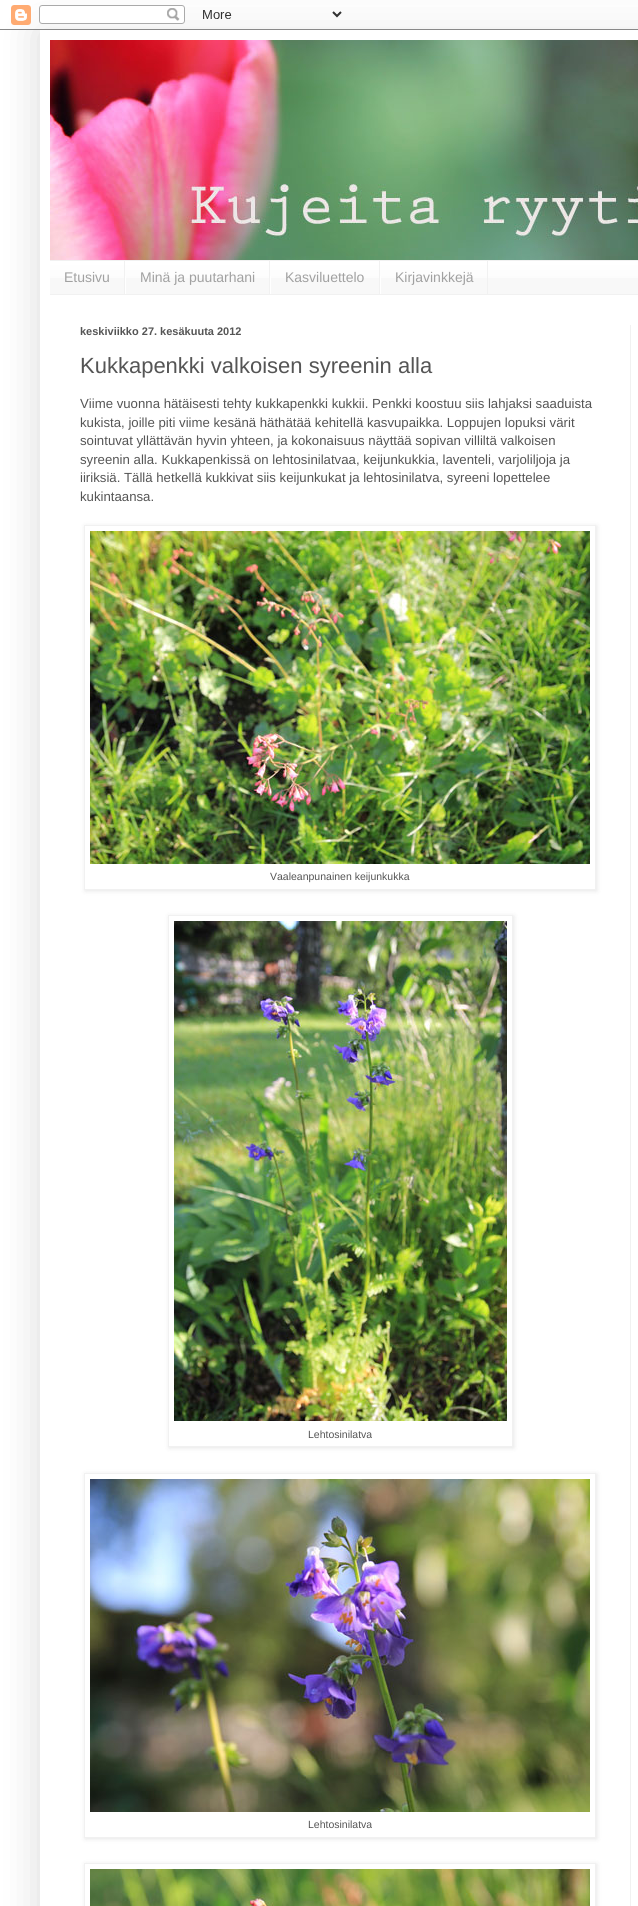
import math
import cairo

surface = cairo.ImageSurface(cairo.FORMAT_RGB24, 638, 1906)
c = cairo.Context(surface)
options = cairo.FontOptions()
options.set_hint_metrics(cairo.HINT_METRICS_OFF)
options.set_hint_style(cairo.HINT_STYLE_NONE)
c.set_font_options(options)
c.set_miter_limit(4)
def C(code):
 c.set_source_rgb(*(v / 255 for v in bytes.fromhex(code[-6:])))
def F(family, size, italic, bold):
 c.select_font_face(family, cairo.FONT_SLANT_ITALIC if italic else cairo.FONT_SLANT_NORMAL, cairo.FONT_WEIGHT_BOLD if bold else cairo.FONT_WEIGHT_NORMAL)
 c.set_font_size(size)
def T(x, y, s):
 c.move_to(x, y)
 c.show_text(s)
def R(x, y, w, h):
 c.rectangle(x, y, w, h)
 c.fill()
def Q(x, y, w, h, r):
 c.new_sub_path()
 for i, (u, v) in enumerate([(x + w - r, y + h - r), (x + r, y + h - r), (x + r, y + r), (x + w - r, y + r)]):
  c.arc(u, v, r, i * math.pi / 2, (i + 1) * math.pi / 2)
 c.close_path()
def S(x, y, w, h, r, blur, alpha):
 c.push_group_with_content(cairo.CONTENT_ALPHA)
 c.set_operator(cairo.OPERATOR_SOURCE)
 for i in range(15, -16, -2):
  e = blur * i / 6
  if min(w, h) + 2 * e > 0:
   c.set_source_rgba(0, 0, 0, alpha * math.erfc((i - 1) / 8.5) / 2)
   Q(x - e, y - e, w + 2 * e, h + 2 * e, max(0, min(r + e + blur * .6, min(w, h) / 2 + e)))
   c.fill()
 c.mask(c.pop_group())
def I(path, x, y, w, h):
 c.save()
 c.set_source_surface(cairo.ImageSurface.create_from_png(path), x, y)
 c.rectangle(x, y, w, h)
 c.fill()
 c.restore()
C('ffffff')
c.paint()
c.save()
c.set_fill_rule(cairo.FILL_RULE_EVEN_ODD)
c.new_path()
c.move_to(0,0)
c.line_to(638,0)
c.line_to(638,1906)
c.line_to(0,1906)
c.close_path()
c.move_to(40,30)
c.line_to(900,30)
c.line_to(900,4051)
c.line_to(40,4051)
c.close_path()
c.clip()
C('000000')
S(40,30,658,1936,0,20,.15)
c.restore()
I('1.png',0,5,638,25)
I('2.png',50,40,588,220)
C('f8f8f8')
R(50,262,588,32)
I('3.png',50,261,588,17)
C('f1f1f1')
R(50,260,588,1)
R(50,294,588,1)
R(124,261,1,33)
F('Liberation Sans',14,0,0)
C('a1a1a1')
T(64,282,'Etusivu')
C('f1f1f1')
R(269,261,1,33)
C('ffffff')
R(125,276,1,18)
C('a1a1a1')
T(140,282,'Minä ja puutarhani')
C('f1f1f1')
R(379,261,1,33)
C('ffffff')
R(270,276,1,18)
C('a1a1a1')
T(285,282,'Kasviluettelo')
C('f1f1f1')
R(487,261,1,33)
C('ffffff')
R(380,276,1,18)
C('a1a1a1')
T(395,282,'Kirjavinkkejä')
F('Liberation Sans',11,0,1)
C('555555')
T(80,335,'keskiviikko 27. kesäkuuta 2012')
F('Liberation Sans',22,0,0)
T(80,373,'Kukkapenkki valkoisen syreenin alla')
F('Liberation Sans',13.2,0,0)
T(80,408,'Viime vuonna hätäisesti tehty kukkapenkki kukkii. Penkki koostuu siis lahjaksi saaduista')
T(80,427,'kukista, joille piti viime kesänä häthätää kehitellä kasvupaikka. Loppujen lopuksi värit')
T(80,445,'sointuvat yllättävän hyvin yhteen, ja kokonaisuus näyttää sopivan villiltä valkoisen')
T(80,464,'syreenin alla. Kukkapenkissä on lehtosinilatvaa, keijunkukkia, laventeli, varjoliljoja ja')
T(80,482,'iiriksiä. Tällä hetkellä kukkivat siis keijunkukat ja lehtosinilatva, syreeni lopettelee')
T(80,501,'kukintaansa.')
c.save()
c.set_fill_rule(cairo.FILL_RULE_EVEN_ODD)
c.new_path()
c.move_to(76,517)
c.line_to(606,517)
c.line_to(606,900)
c.line_to(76,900)
c.close_path()
c.move_to(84,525)
c.line_to(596,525)
c.line_to(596,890)
c.line_to(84,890)
c.close_path()
c.clip()
C('000000')
S(85,526,512,365,0,2.5,.1)
c.restore()
c.rectangle(84.5,525.5,511,364)
C('f1f1f1')
c.set_line_width(1)
c.stroke()
I('4.png',90,531,500,333)
F('Liberation Sans',10.5,0,0)
C('555555')
T(270,880,'Vaaleanpunainen keijunkukka')
c.save()
c.set_fill_rule(cairo.FILL_RULE_EVEN_ODD)
c.new_path()
c.move_to(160,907)
c.line_to(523,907)
c.line_to(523,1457)
c.line_to(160,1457)
c.close_path()
c.move_to(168,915)
c.line_to(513,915)
c.line_to(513,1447)
c.line_to(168,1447)
c.close_path()
c.clip()
C('000000')
S(169,916,345,532,0,2.5,.1)
c.restore()
c.rectangle(168.5,915.5,344,531)
C('f1f1f1')
c.stroke()
I('5.png',174,921,333,500)
C('555555')
T(308,1438,'Lehtosinilatva')
c.save()
c.set_fill_rule(cairo.FILL_RULE_EVEN_ODD)
c.new_path()
c.move_to(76,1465)
c.line_to(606,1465)
c.line_to(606,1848)
c.line_to(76,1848)
c.close_path()
c.move_to(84,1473)
c.line_to(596,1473)
c.line_to(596,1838)
c.line_to(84,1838)
c.close_path()
c.clip()
C('000000')
S(85,1474,512,365,0,2.5,.1)
c.restore()
c.rectangle(84.5,1473.5,511,364)
C('f1f1f1')
c.stroke()
I('6.png',90,1479,500,333)
C('555555')
T(308,1828,'Lehtosinilatva')
c.save()
c.set_fill_rule(cairo.FILL_RULE_EVEN_ODD)
c.new_path()
c.move_to(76,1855)
c.line_to(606,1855)
c.line_to(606,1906)
c.line_to(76,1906)
c.close_path()
c.move_to(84,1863)
c.line_to(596,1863)
c.line_to(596,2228)
c.line_to(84,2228)
c.close_path()
c.clip()
C('000000')
S(85,1864,512,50,0,2.5,.1)
c.restore()
c.rectangle(84.5,1863.5,511,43)
C('f1f1f1')
c.stroke()
I('7.png',90,1869,500,37)
R(630,325,1,1581)
surface.write_to_png('o.png')
